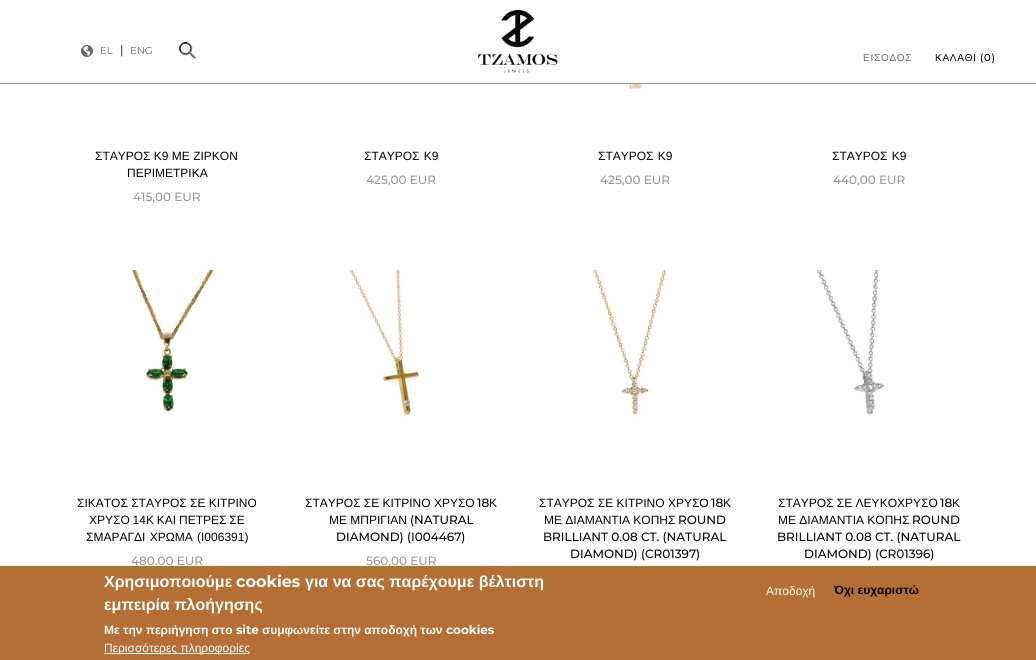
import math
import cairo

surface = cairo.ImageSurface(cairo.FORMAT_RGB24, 1036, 660)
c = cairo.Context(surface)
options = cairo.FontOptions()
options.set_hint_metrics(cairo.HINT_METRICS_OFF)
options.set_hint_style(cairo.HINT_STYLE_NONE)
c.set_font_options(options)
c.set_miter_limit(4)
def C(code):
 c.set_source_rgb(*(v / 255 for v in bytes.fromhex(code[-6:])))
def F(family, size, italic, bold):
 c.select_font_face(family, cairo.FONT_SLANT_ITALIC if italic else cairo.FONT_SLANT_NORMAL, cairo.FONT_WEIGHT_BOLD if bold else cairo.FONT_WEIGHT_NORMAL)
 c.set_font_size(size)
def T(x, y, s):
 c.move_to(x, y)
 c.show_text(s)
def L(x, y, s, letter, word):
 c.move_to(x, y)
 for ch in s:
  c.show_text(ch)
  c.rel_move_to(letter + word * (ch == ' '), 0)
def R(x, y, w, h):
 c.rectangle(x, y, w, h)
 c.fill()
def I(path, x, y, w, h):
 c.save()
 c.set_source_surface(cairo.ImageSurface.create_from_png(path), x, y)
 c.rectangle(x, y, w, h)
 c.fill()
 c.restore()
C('ffffff')
c.paint()
C('999999')
R(0,83,1036,1)
I('1.png',81,45,12,12)
F('Montserrat',10,0,0)
C('6a6a6a')
T(100,54,'EL')
F('Montserrat',12,0,0)
C('030303')
T(120,54,'|')
F('Montserrat',10,0,0)
C('6a6a6a')
T(130,54,'ENG')
I('2.png',179,42,17,17)
I('3.png',478,10,80,63)
F('Liberation Sans',10,0,0)
L(863,61,'ΕΙΣΟΔΟΣ',.75,0)
C('030303')
L(935,61,'ΚΑΛΑΘΙ',.75,0)
F('Montserrat Medium',10,0,0)
L(980,61,'(0)',.75,0)
I('4.png',137,84,59,1)
F('Liberation Sans',12,0,0)
T(95,160,'ΣΤΑΥΡΟΣ Κ9 ΜΕ ΖΙΡΚΟΝ')
T(127,177,'ΠΕΡΙΜΕΤΡΙΚΑ')
F('Montserrat Medium',12,0,0)
C('999999')
T(133,201,'415,00 EUR')
F('Liberation Sans',12,0,0)
C('030303')
L(364,160,'ΣΤΑΥΡΟΣ Κ9',0,1)
F('Montserrat Medium',12,0,0)
C('999999')
T(366,184,'425,00 EUR')
I('5.png',604,84,66,5)
F('Liberation Sans',12,0,0)
C('030303')
L(598,160,'ΣΤΑΥΡΟΣ Κ9',0,1)
F('Montserrat Medium',12,0,0)
C('999999')
T(600,184,'425,00 EUR')
F('Liberation Sans',12,0,0)
C('030303')
L(832,160,'ΣΤΑΥΡΟΣ Κ9',0,1)
F('Montserrat Medium',12,0,0)
C('999999')
T(833,184,'440,00 EUR')
I('6.png',130,270,85,143)
F('Liberation Sans',12,0,0)
C('030303')
T(77,507,'ΣΙΚΑΤΟΣ ΣΤΑΥΡΟΣ ΣΕ ΚΙΤΡΙΝΟ')
L(89,524,'ΧΡΥΣΟ 14Κ ΚΑΙ ΠΕΤΡΕΣ ΣΕ',0,-.5)
L(86,541,'ΣΜΑΡΑΓΔΙ ΧΡΩΜΑ (I006391)',0,1)
F('Montserrat Medium',12,0,0)
C('999999')
T(131,565,'480,00 EUR')
I('7.png',345,270,76,150)
F('Liberation Sans',12,0,0)
C('030303')
T(305,507,'ΣΤΑΥΡΟΣ ΣΕ ΚΙΤΡΙΝΟ ΧΡΥΣΟ')
F('Montserrat Medium',12,0,0)
T(477,507,'18')
F('Liberation Sans',12,0,0)
T(489,507,'Κ')
T(329,524,'ΜΕ ΜΠΡΙΓΙΑΝ')
F('Montserrat Medium',12,0,0)
T(410,524,'(NATURAL')
T(336,541,'DIAMOND) (I004467)')
C('999999')
T(366,565,'560,00 EUR')
I('8.png',592,270,75,150)
F('Liberation Sans',12,0,0)
C('030303')
T(539,507,'ΣΤΑΥΡΟΣ ΣΕ ΚΙΤΡΙΝΟ ΧΡΥΣΟ')
F('Montserrat Medium',12,0,0)
T(711,507,'18')
F('Liberation Sans',12,0,0)
T(723,507,'Κ')
T(544,524,'ΜΕ ΔΙΑΜΑΝΤΙΑ ΚΟΠΗΣ')
F('Montserrat Medium',12,0,0)
T(678,524,'ROUND')
T(543,541,'BRILLIANT 0.08 CT. (NATURAL')
T(570,558,'DIAMOND) (CR01397)')
I('9.png',816,270,69,147)
F('Liberation Sans',12,0,0)
T(778,507,'ΣΤΑΥΡΟΣ ΣΕ ΛΕΥΚΟΧΡΥΣΟ')
F('Montserrat Medium',12,0,0)
T(940,507,'18')
F('Liberation Sans',12,0,0)
T(952,507,'Κ')
T(778,524,'ΜΕ ΔΙΑΜΑΝΤΙΑ ΚΟΠΗΣ')
F('Montserrat Medium',12,0,0)
T(912,524,'ROUND')
T(777,541,'BRILLIANT 0.08 CT. (NATURAL')
T(804,558,'DIAMOND) (CR01396)')
C('b56e33')
R(0,566,1036,94)
F('Liberation Sans',16,0,1)
C('ffffff')
T(104,587,'Χρησιμοποιούμε')
F('Montserrat',16,0,1)
T(236,587,'cookies')
F('Liberation Sans',16,0,1)
T(305,587,'για να σας παρέχουμε βέλτιστη')
T(104,610,'εμπειρία πλοήγησης')
F('Liberation Sans',12,0,1)
T(104,634,'Με την περιήγηση στο')
F('Montserrat',12,0,1)
T(236,634,'site')
F('Liberation Sans',12,0,1)
T(262,634,'συμφωνείτε στην αποδοχή των')
F('Montserrat',12,0,1)
T(446,634,'cookies')
R(104,653,145,1)
F('Liberation Sans',12,0,0)
T(104,652,'Περισσότερες πληροφορίες')
T(766,595,'Αποδοχή')
F('Liberation Sans',12,0,1)
C('030303')
T(834,594,'Όχι ευχαριστώ')
surface.write_to_png('o.png')
